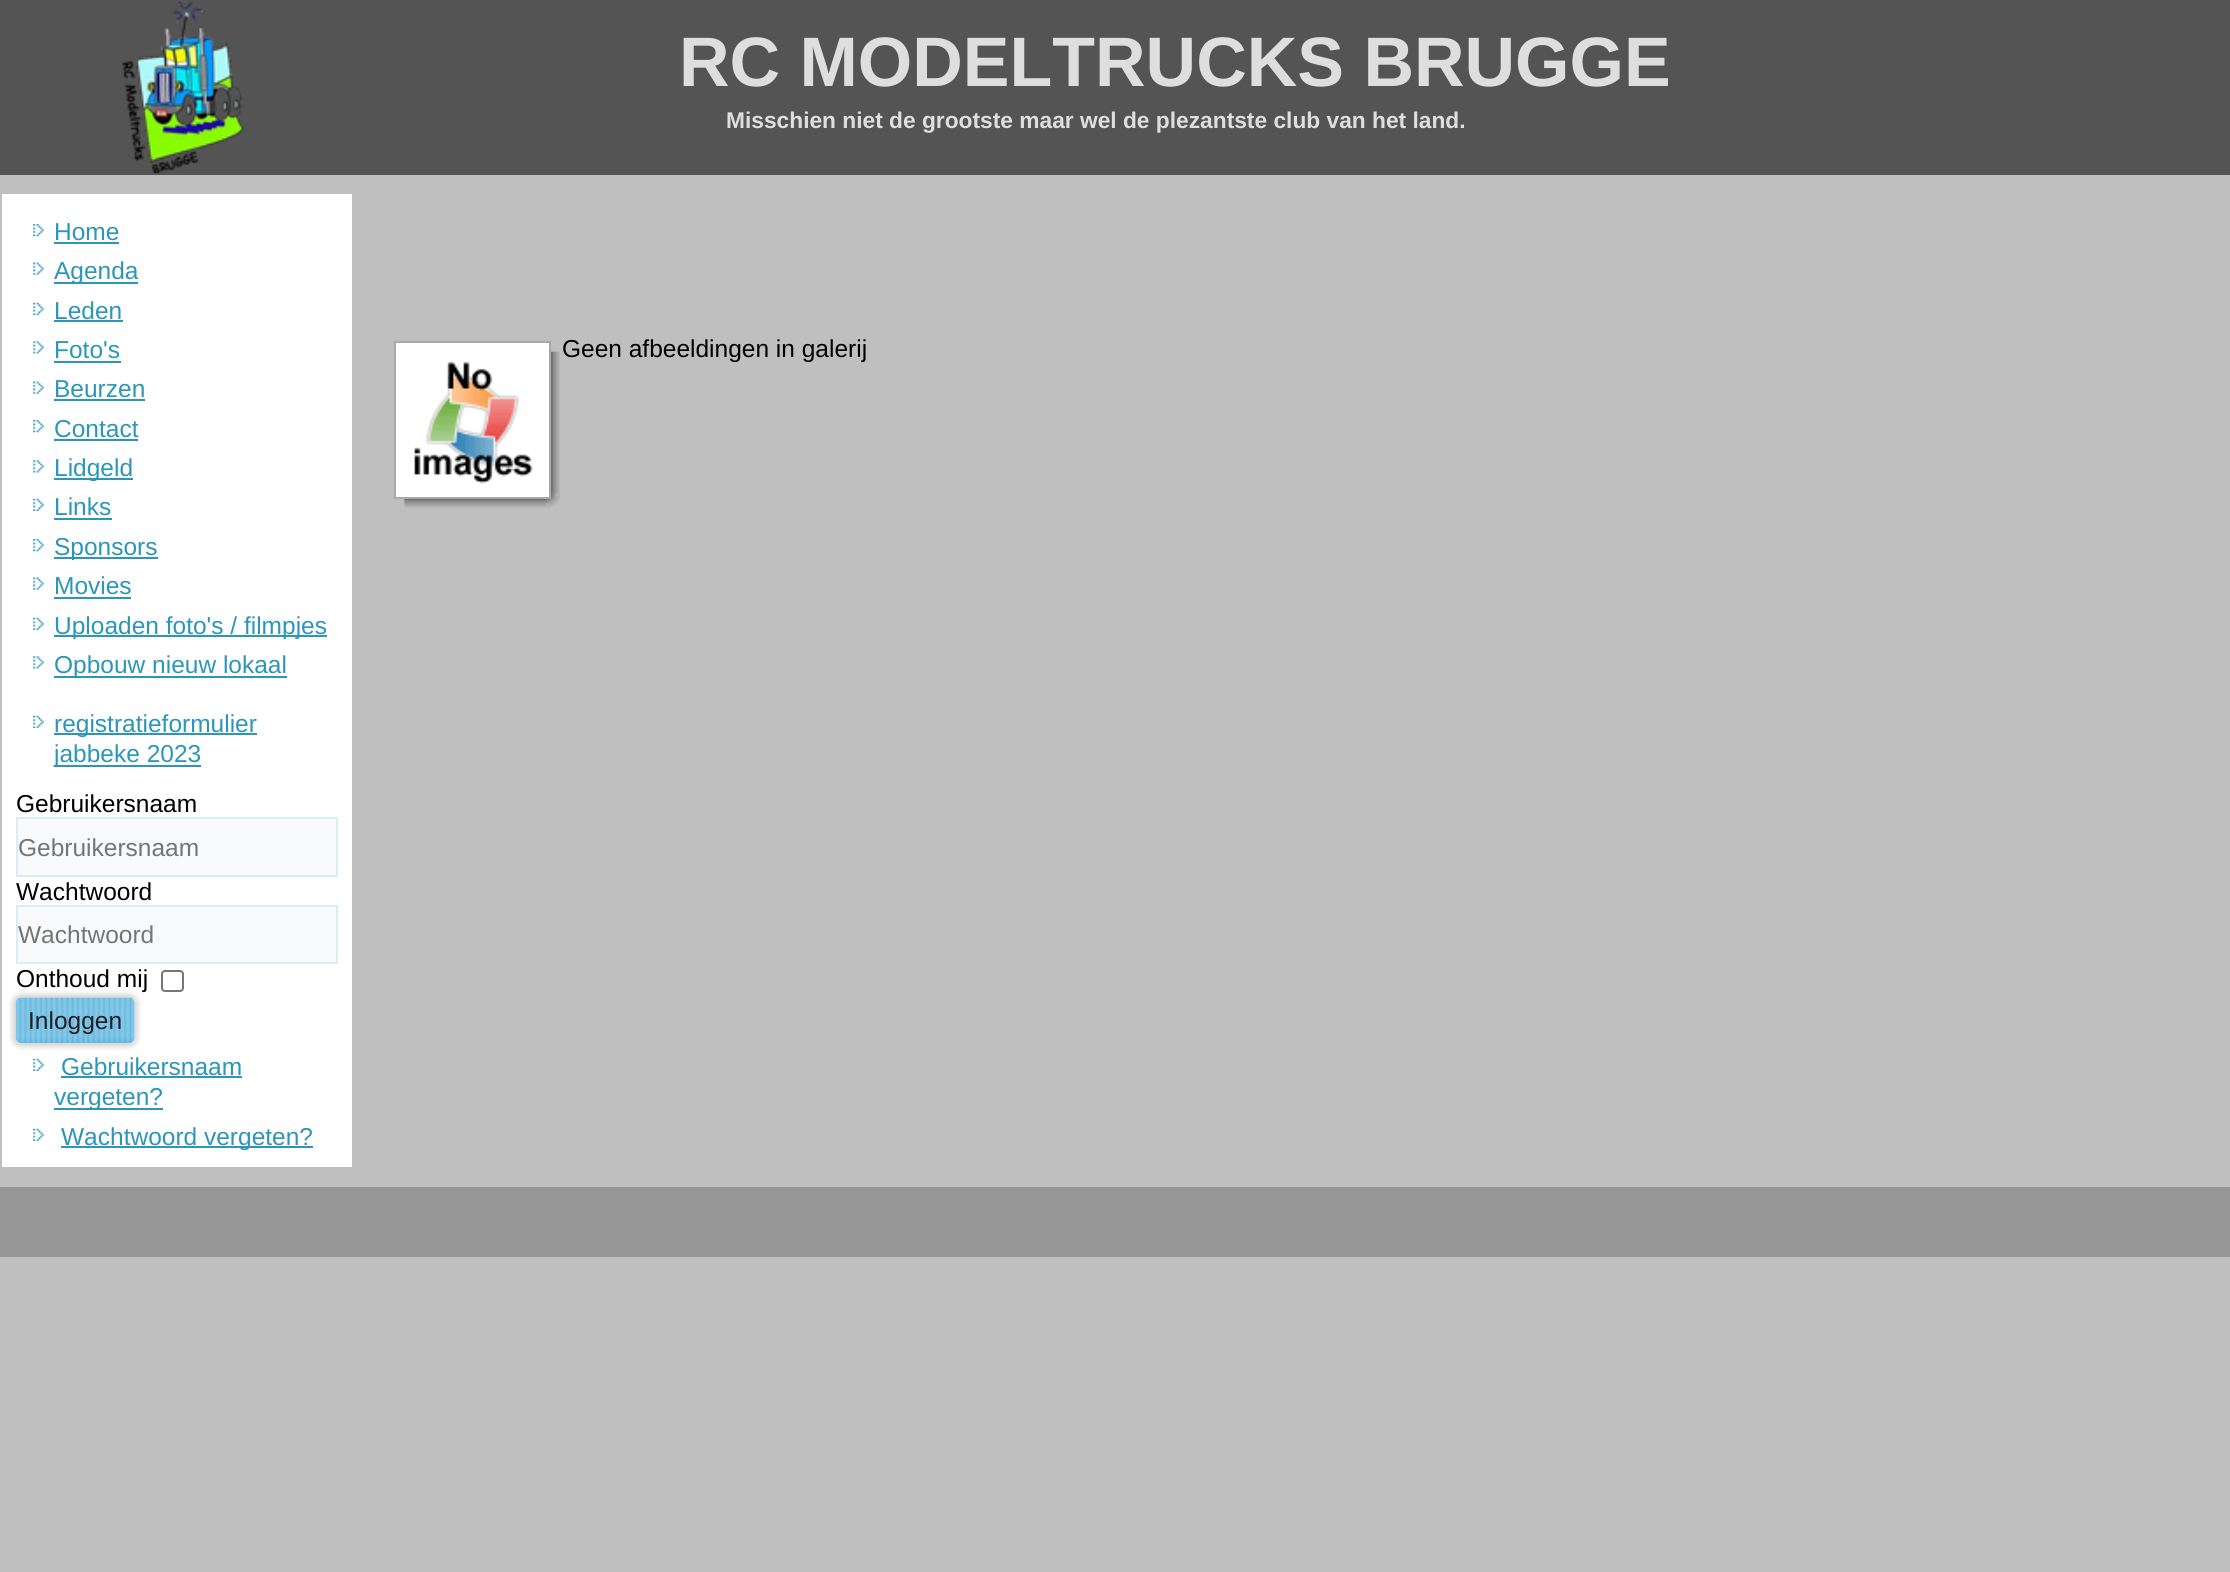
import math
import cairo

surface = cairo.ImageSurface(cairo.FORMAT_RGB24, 2230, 1572)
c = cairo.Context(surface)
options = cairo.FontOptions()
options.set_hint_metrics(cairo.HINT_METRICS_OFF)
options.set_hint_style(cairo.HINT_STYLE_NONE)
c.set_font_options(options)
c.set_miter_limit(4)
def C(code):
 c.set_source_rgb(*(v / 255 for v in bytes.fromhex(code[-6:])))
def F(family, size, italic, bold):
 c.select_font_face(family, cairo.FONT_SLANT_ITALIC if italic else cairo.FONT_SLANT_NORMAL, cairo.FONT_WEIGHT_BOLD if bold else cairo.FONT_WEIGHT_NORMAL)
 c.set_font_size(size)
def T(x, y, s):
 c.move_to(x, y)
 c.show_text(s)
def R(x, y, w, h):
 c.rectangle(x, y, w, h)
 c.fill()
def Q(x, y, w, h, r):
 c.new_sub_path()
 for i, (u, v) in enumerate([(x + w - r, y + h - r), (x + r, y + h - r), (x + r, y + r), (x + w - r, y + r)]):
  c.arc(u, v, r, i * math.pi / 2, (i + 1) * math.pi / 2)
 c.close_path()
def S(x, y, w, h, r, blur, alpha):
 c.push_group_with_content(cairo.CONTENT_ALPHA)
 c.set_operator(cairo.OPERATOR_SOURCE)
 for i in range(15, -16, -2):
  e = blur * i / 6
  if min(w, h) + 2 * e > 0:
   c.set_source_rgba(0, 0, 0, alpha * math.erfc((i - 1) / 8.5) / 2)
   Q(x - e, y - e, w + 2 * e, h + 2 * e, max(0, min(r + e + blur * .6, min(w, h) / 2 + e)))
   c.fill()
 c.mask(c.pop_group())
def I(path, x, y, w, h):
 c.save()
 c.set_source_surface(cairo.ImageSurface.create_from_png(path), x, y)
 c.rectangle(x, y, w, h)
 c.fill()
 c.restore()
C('bfbfbf')
c.paint()
C('545454')
R(0,0,2230,175)
I('1.png',122,1,122,173)
F('Liberation Sans',70,0,1)
C('dedede')
T(679,86,'RC MODELTRUCKS BRUGGE')
F('Liberation Sans',22.75,0,1)
T(726,128,'Misschien niet de grootste maar wel de plezantste club van het land.')
C('ffffff')
R(2,194,350,973)
I('2.png',33,224,11,13)
F('Liberation Sans',24.5,0,0)
C('2c96ba')
T(54,240,'Home')
R(54,242,65,2)
I('3.png',33,262,11,13)
R(54,282,84,2)
T(54,279,'Agenda')
I('4.png',33,302,11,13)
T(54,319,'Leden')
R(54,320,69,2)
I('5.png',33,341,11,13)
T(54,358,'Foto\'s')
R(54,361,67,2)
I('3.png',33,381,11,13)
T(54,397,'Beurzen')
R(54,399,91,2)
I('2.png',33,420,11,13)
T(54,437,'Contact')
R(54,439,84,2)
I('5.png',33,460,11,13)
R(54,478,79,2)
T(54,476,'Lidgeld')
I('4.png',33,498,11,13)
T(54,515,'Links')
R(54,518,58,2)
I('2.png',33,539,11,13)
R(54,557,104,2)
T(54,555,'Sponsors')
I('3.png',33,577,11,13)
T(54,594,'Movies')
R(54,597,77,2)
I('4.png',33,617,11,13)
R(54,635,273,2)
T(54,634,'Uploaden foto\'s / filmpjes')
I('5.png',33,656,11,13)
R(54,676,233,2)
T(54,673,'Opbouw nieuw lokaal')
I('4.png',33,715,11,13)
R(54,733,203,2)
T(54,732,'registratieformulier')
R(54,765,147,2)
T(54,762,'jabbeke 2023')
C('000000')
T(16,812,'Gebruikersnaam')
C('f9fafb')
c.rectangle(17,818,320,58)
c.fill_preserve()
C('daedf4')
c.stroke()
C('757575')
T(18,856,'Gebruikersnaam')
C('000000')
T(16,900,'Wachtwoord')
C('f9fafb')
c.rectangle(17,906,320,57)
c.fill_preserve()
C('daedf4')
c.stroke()
C('757575')
T(18,943,'Wachtwoord')
C('000000')
T(16,987,'Onthoud mij')
Q(162,971,21,20,3)
C('767676')
c.stroke()
c.save()
c.set_fill_rule(cairo.FILL_RULE_EVEN_ODD)
c.new_path()
c.move_to(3,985)
c.line_to(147,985)
c.line_to(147,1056)
c.line_to(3,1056)
c.close_path()
c.move_to(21,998)
c.line_to(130,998)
c.curve_to(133,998,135,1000,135,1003)
c.line_to(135,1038)
c.curve_to(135,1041,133,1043,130,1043)
c.line_to(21,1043)
c.curve_to(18,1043,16,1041,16,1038)
c.line_to(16,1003)
c.curve_to(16,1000,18,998,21,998)
c.close_path()
c.clip()
C('000000')
S(12,994,126,53,9,2.5,.16)
c.restore()
I('6.png',15,997,120,46)
C('1f1f1f')
T(28,1029,'Inloggen')
I('4.png',33,1058,11,13)
C('2c96ba')
T(61,1075,'Gebruikersnaam')
R(61,1076,181,2)
R(54,1108,109,2)
T(54,1105,'vergeten?')
I('4.png',33,1128,11,13)
R(61,1146,252,2)
T(61,1145,'Wachtwoord vergeten?')
I('7.png',404,351,156,157)
C('ffffff')
c.rectangle(395,342,155,156)
c.fill_preserve()
C('a9a9a9')
c.stroke()
I('8.png',414,361,119,123)
C('000000')
T(562,357,'Geen afbeeldingen in galerij')
C('969696')
R(0,1187,2230,70)
surface.write_to_png('o.png')
